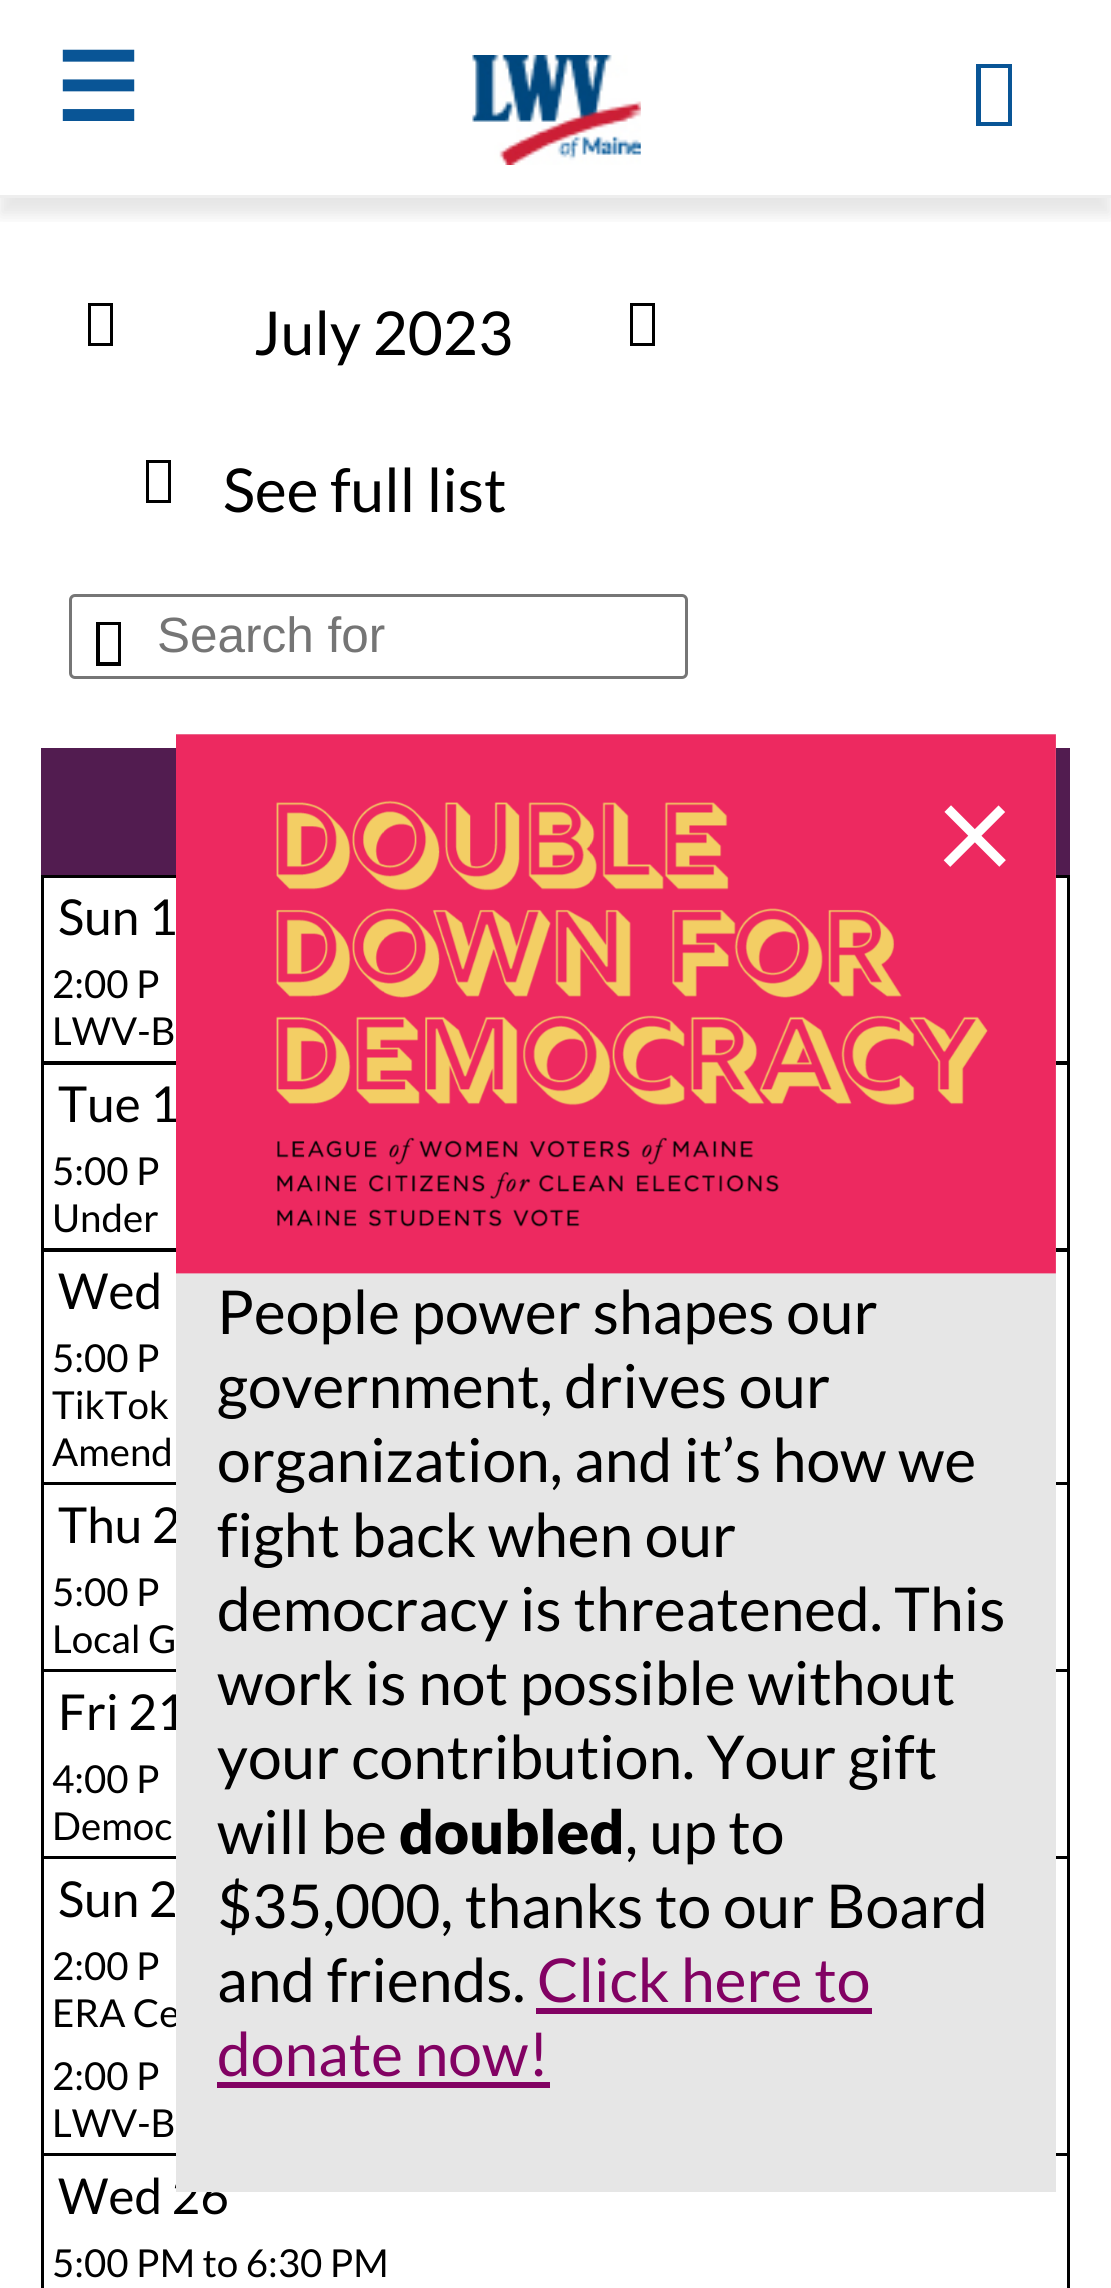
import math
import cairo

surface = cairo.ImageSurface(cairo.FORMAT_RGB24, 1111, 2288)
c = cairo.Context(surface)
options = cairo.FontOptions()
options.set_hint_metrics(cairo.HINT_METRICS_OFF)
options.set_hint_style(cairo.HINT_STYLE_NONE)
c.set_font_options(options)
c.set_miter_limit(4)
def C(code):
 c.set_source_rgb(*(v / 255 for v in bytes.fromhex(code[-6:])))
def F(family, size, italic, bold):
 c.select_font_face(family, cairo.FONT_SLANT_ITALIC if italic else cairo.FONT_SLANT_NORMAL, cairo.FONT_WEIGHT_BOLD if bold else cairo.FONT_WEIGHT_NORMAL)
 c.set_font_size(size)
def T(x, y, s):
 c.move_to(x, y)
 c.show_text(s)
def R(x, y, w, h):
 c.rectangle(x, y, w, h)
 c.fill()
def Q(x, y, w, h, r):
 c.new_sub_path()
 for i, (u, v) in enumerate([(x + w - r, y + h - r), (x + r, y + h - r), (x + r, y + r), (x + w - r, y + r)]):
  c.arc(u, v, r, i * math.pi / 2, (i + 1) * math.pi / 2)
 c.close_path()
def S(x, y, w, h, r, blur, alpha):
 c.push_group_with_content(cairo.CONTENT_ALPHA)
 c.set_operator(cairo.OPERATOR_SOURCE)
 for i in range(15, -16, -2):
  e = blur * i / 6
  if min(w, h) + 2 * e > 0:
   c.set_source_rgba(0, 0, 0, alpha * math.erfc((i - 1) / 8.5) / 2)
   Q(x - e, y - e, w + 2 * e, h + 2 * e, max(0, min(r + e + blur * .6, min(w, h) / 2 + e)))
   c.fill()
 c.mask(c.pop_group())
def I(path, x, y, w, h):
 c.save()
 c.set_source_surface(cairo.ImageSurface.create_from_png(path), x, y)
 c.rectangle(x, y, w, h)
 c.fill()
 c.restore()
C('ffffff')
c.paint()
c.save()
c.rectangle(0,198,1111,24)
c.clip()
C('000000')
S(0,17,1111,198,0,8,.1)
c.restore()
C('eeeeee')
R(0,195,1111,3)
F('DejaVu Sans',94,0,1)
C('095596')
T(55,121,'☰')
I('1.png',472,55,169,110)
c.new_path()
c.move_to(976,126)
c.line_to(976,64)
c.line_to(1012,64)
c.line_to(1012,126)
c.close_path()
c.move_to(981,122)
c.line_to(1008,122)
c.line_to(1008,68)
c.line_to(981,68)
c.close_path()
c.fill()
C('000000')
c.new_path()
c.move_to(88,346)
c.line_to(88,303)
c.line_to(113,303)
c.line_to(113,346)
c.close_path()
c.move_to(91,343)
c.line_to(110,343)
c.line_to(110,306)
c.line_to(91,306)
c.close_path()
c.fill()
F('Lato',60.5,0,0)
T(254,355,'July 2023')
c.new_path()
c.move_to(630,346)
c.line_to(630,303)
c.line_to(655,303)
c.line_to(655,346)
c.close_path()
c.move_to(633,343)
c.line_to(652,343)
c.line_to(652,306)
c.line_to(633,306)
c.close_path()
c.fill()
c.new_path()
c.move_to(146,503)
c.line_to(146,460)
c.line_to(171,460)
c.line_to(171,503)
c.close_path()
c.move_to(149,500)
c.line_to(168,500)
c.line_to(168,463)
c.line_to(149,463)
c.close_path()
c.fill()
T(223,512,'See full list')
Q(70.5,595.5,616,82,4.5)
C('767676')
c.set_line_width(3)
c.stroke()
C('000000')
c.new_path()
c.move_to(96,666)
c.line_to(96,622)
c.line_to(121,622)
c.line_to(121,666)
c.close_path()
c.move_to(100,662)
c.line_to(118,662)
c.line_to(118,625)
c.line_to(100,625)
c.close_path()
c.fill()
F('Liberation Sans',49.5,0,0)
C('757575')
T(157,652,'Search for')
C('521c50')
R(41,748,1029,127)
c.rectangle(42.5,876.5,1026,186)
C('000000')
c.stroke()
F('Lato',49.5,0,0)
T(58,935,'Sun 1')
F('Lato',38.5,0,0)
T(52,998,'2:00 P')
T(52,1045,'LWV-B')
c.rectangle(42.5,1063.5,1026,186)
c.stroke()
F('Lato',49.5,0,0)
T(58,1122,'Tue 1')
F('Lato',38.5,0,0)
T(52,1185,'5:00 P')
T(52,1232,'Under')
c.rectangle(42.5,1250.5,1026,233)
c.stroke()
F('Lato',49.5,0,0)
T(58,1309,'Wed')
F('Lato',38.5,0,0)
T(52,1372,'5:00 P')
T(52,1419,'TikTok')
T(52,1466,'Amend')
c.rectangle(42.5,1483.5,1026,187)
c.stroke()
F('Lato',49.5,0,0)
T(58,1543,'Thu 2')
F('Lato',38.5,0,0)
T(52,1606,'5:00 P')
T(52,1653,'Local G')
c.rectangle(42.5,1670.5,1026,187)
c.stroke()
F('Lato',49.5,0,0)
T(58,1730,'Fri 21')
F('Lato',38.5,0,0)
T(52,1793,'4:00 P')
T(52,1840,'Democ')
c.rectangle(42.5,1857.5,1026,297)
c.stroke()
F('Lato',49.5,0,0)
T(58,1917,'Sun 2')
F('Lato',38.5,0,0)
T(52,1980,'2:00 P')
T(52,2027,'ERA Ce')
T(52,2090,'2:00 P')
T(52,2137,'LWV-B')
c.rectangle(42.5,2154.5,1026,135)
c.stroke()
F('Lato',49.5,0,0)
T(58,2214,'Wed 26')
F('Lato',38.5,0,0)
T(52,2277,'5:00 PM to 6:30 PM')
C('e6e6e6')
R(176,734,880,1458)
I('2.png',176,734,880,540)
F('Lato',138,0,0)
C('ffffff')
T(935,882,'×')
F('Lato',60.5,0,0)
C('000000')
T(217,1334,'People power shapes our')
T(217,1408,'government, drives our')
T(217,1482,'organization, and it’s how we')
T(217,1557,'fight back when our')
T(217,1631,'democracy is threatened. This')
T(217,1705,'work is not possible without')
T(217,1779,'your contribution. Your gift')
T(217,1854,'will be')
F('Lato Black',60.5,0,0)
T(399,1854,'doubled')
F('Lato',60.5,0,0)
T(625,1854,', up to')
T(217,1928,'$35,000, thanks to our Board')
T(217,2002,'and friends.')
C('820263')
T(537,2002,'Click here to')
R(536,2008,336,6)
T(217,2076,'donate now!')
R(217,2082,333,6)
surface.write_to_png('o.png')
